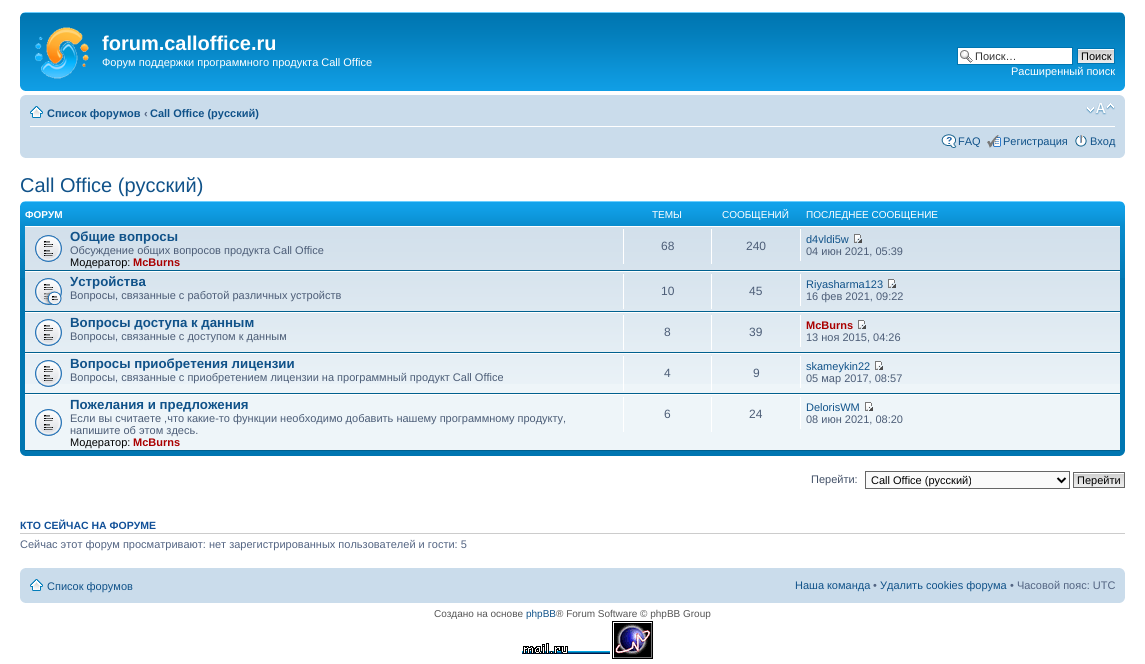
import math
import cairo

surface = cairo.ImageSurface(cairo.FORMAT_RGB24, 1145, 664)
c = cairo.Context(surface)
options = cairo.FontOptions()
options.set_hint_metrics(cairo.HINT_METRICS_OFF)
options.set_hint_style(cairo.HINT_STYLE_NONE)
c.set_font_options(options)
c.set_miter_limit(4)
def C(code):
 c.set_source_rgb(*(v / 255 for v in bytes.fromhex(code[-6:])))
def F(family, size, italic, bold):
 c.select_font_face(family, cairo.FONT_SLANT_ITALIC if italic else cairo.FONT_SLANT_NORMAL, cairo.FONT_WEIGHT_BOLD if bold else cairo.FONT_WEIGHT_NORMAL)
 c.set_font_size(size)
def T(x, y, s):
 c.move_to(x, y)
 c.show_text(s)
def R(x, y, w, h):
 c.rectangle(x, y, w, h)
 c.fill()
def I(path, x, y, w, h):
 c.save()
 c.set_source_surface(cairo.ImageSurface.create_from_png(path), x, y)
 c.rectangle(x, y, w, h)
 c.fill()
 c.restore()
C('ffffff')
c.paint()
I('1.png',20,12,1105,79)
I('2.png',20,12,5,5)
I('3.png',1120,12,5,5)
I('4.png',35,27,54,52)
F('Liberation Sans',20,0,1)
C('ffffff')
T(102,50,'forum.calloffice.ru')
F('Liberation Sans',11,0,0)
T(102,66,'Форум поддержки программного продукта Call Office')
R(958,48,114,16)
I('5.png',960,50,13,13)
c.rectangle(957.5,47.5,115,17)
C('0075b0')
c.set_line_width(1)
c.stroke()
C('333333')
T(975,60,'Поиск…')
I('6.png',1078,49,36,14)
c.rectangle(1077.5,48.5,37,15)
C('0075b0')
c.stroke()
C('000000')
T(1081,60,'Поиск')
C('ffffff')
T(1011,75,'Расширенный поиск')
I('7.png',20,86,5,5)
I('8.png',1120,86,5,5)
C('cadceb')
R(20,95,1105,63)
I('9.png',20,95,5,5)
I('10.png',1120,95,5,5)
C('ffffff')
R(30,126,1085,1)
I('11.png',30,106,13,12)
F('Liberation Sans',11,0,1)
C('105289')
T(47,117,'Список форумов')
C('536482')
T(144,117,'‹')
C('105289')
T(150,117,'Call Office (русский)')
I('12.png',1086,103,29,12)
I('13.png',941,134,16,14)
F('Liberation Sans',11,0,0)
T(958,145,'FAQ')
I('14.png',987,135,14,13)
T(1003,145,'Регистрация')
I('15.png',1075,135,12,12)
T(1090,145,'Вход')
I('16.png',20,153,5,5)
I('17.png',1120,153,5,5)
F('Liberation Sans',20,0,0)
T(20,192,'Call Office (русский)')
C('0076b1')
R(20,278,1105,178)
I('18.png',20,201,1105,77)
I('19.png',20,201,5,5)
I('20.png',1120,201,5,5)
F('Liberation Sans',10,0,1)
C('ffffff')
T(25,218,'ФОРУМ')
F('Liberation Sans',10,0,0)
T(652,218,'ТЕМЫ')
T(722,218,'СООБЩЕНИЙ')
T(806,218,'ПОСЛЕДНЕЕ СООБЩЕНИЕ')
C('eef5f9')
R(25,384,1095,66)
I('21.png',25,227,1095,157)
C('ffffff')
R(25,226,1095,1)
C('00608f')
R(25,270,1095,1)
I('22.png',35,235,27,27)
F('Liberation Sans',13.25,0,1)
C('105289')
T(70,241,'Общие вопросы')
F('Liberation Sans',11,0,0)
C('4c5d77')
T(70,254,'Обсуждение общих вопросов продукта Call Office')
C('000000')
T(70,266,'Модератор:')
F('Liberation Sans',11,0,1)
C('aa0000')
T(133,266,'McBurns')
C('ffffff')
R(623,229,1,35)
F('Liberation Sans',12,0,0)
C('4c5d77')
T(661,250,'68')
C('ffffff')
R(711,229,1,35)
C('4c5d77')
T(746,250,'240')
C('ffffff')
R(800,229,1,32)
F('Liberation Sans',11,0,0)
C('105289')
T(806,243,'d4vldi5w')
I('23.png',854,234,8,9)
C('4c5d77')
T(806,255,'04 июн 2021, 05:39')
C('ffffff')
R(25,271,1095,1)
C('00608f')
R(25,311,1095,1)
I('24.png',35,278,27,27)
F('Liberation Sans',13.25,0,1)
C('105289')
T(70,286,'Устройства')
F('Liberation Sans',11,0,0)
C('4c5d77')
T(70,299,'Вопросы, связанные с работой различных устройств')
C('ffffff')
R(623,274,1,35)
F('Liberation Sans',12,0,0)
C('4c5d77')
T(661,295,'10')
C('ffffff')
R(711,274,1,35)
C('4c5d77')
T(749,295,'45')
C('ffffff')
R(800,274,1,32)
F('Liberation Sans',11,0,0)
C('105289')
T(806,288,'Riyasharma123')
I('25.png',888,279,8,9)
C('4c5d77')
T(806,300,'16 фев 2021, 09:22')
C('ffffff')
R(25,312,1095,1)
C('00608f')
R(25,352,1095,1)
I('26.png',35,319,27,27)
F('Liberation Sans',13.25,0,1)
C('105289')
T(70,327,'Вопросы доступа к данным')
F('Liberation Sans',11,0,0)
C('4c5d77')
T(70,340,'Вопросы, связанные с доступом к данным')
C('ffffff')
R(623,315,1,35)
F('Liberation Sans',12,0,0)
C('4c5d77')
T(664,336,'8')
C('ffffff')
R(711,315,1,35)
C('4c5d77')
T(749,336,'39')
C('ffffff')
R(800,315,1,32)
F('Liberation Sans',11,0,1)
C('aa0000')
T(806,329,'McBurns')
I('27.png',858,320,8,9)
F('Liberation Sans',11,0,0)
C('4c5d77')
T(806,341,'13 ноя 2015, 04:26')
C('ffffff')
R(25,353,1095,1)
C('00608f')
R(25,393,1095,1)
I('28.png',35,360,27,27)
F('Liberation Sans',13.25,0,1)
C('105289')
T(70,368,'Вопросы приобретения лицензии')
F('Liberation Sans',11,0,0)
C('4c5d77')
T(70,381,'Вопросы, связанные с приобретением лицензии на программный продукт Call Office')
C('ffffff')
R(623,356,1,35)
F('Liberation Sans',12,0,0)
C('4c5d77')
T(664,377,'4')
C('ffffff')
R(711,356,1,35)
C('4c5d77')
T(753,377,'9')
C('ffffff')
R(800,356,1,32)
F('Liberation Sans',11,0,0)
C('105289')
T(806,370,'skameykin22')
I('29.png',875,361,8,9)
C('4c5d77')
T(806,382,'05 мар 2017, 08:57')
C('ffffff')
R(25,394,1095,1)
C('00608f')
R(25,450,1095,1)
I('30.png',35,409,27,27)
F('Liberation Sans',13.25,0,1)
C('105289')
T(70,409,'Пожелания и предложения')
F('Liberation Sans',11,0,0)
C('4c5d77')
T(70,422,'Если вы считаете ,что какие-то функции необходимо добавить нашему программному продукту,')
T(70,434,'напишите об этом здесь.')
C('000000')
T(70,446,'Модератор:')
F('Liberation Sans',11,0,1)
C('aa0000')
T(133,446,'McBurns')
C('ffffff')
R(623,397,1,35)
F('Liberation Sans',12,0,0)
C('4c5d77')
T(664,418,'6')
C('ffffff')
R(711,397,1,35)
C('4c5d77')
T(749,418,'24')
C('ffffff')
R(800,397,1,32)
F('Liberation Sans',11,0,0)
C('105289')
T(806,411,'DelorisWM')
I('31.png',865,402,8,9)
C('4c5d77')
T(806,423,'08 июн 2021, 08:20')
I('32.png',20,451,5,5)
I('33.png',1120,451,5,5)
C('425067')
T(811,483,'Перейти:')
C('fafafa')
c.rectangle(865.5,471.5,204,17)
c.fill_preserve()
C('666666')
c.stroke()
c.new_path()
c.move_to(1057.5,478)
c.line_to(1061.5,482)
c.line_to(1065.5,478)
C('000000')
c.set_line_width(2)
c.stroke()
T(871,484,'Call Office (русский)')
I('34.png',1074,473,50,14)
c.rectangle(1073.5,472.5,51,15)
C('666666')
c.set_line_width(1)
c.stroke()
C('000000')
T(1077,484,'Перейти')
C('cccccc')
R(20,533,1105,1)
F('Liberation Sans',10.5,0,1)
C('115098')
T(20,529,'КТО СЕЙЧАС НА ФОРУМЕ')
F('Liberation Sans',11,0,0)
C('536482')
T(20,548,'Сейчас этот форум просматривают: нет зарегистрированных пользователей и гости: 5')
C('cadceb')
R(20,568,1105,35)
I('9.png',20,568,5,5)
I('10.png',1120,568,5,5)
I('11.png',30,579,13,12)
C('105289')
T(47,590,'Список форумов')
T(795,589,'Наша команда')
C('536482')
T(873,589,'•')
C('105289')
T(880,589,'Удалить cookies форума')
C('536482')
T(1010,589,'• Часовой пояс: UTC')
I('16.png',20,598,5,5)
I('17.png',1120,598,5,5)
F('Liberation Sans',10,0,0)
C('555555')
T(434,617,'Создано на основе')
C('105289')
T(526,617,'phpBB')
C('555555')
T(556,617,'® Forum Software © phpBB Group')
I('35.png',522,643,88,11)
I('36.png',612,621,41,38)
surface.write_to_png('o.png')
